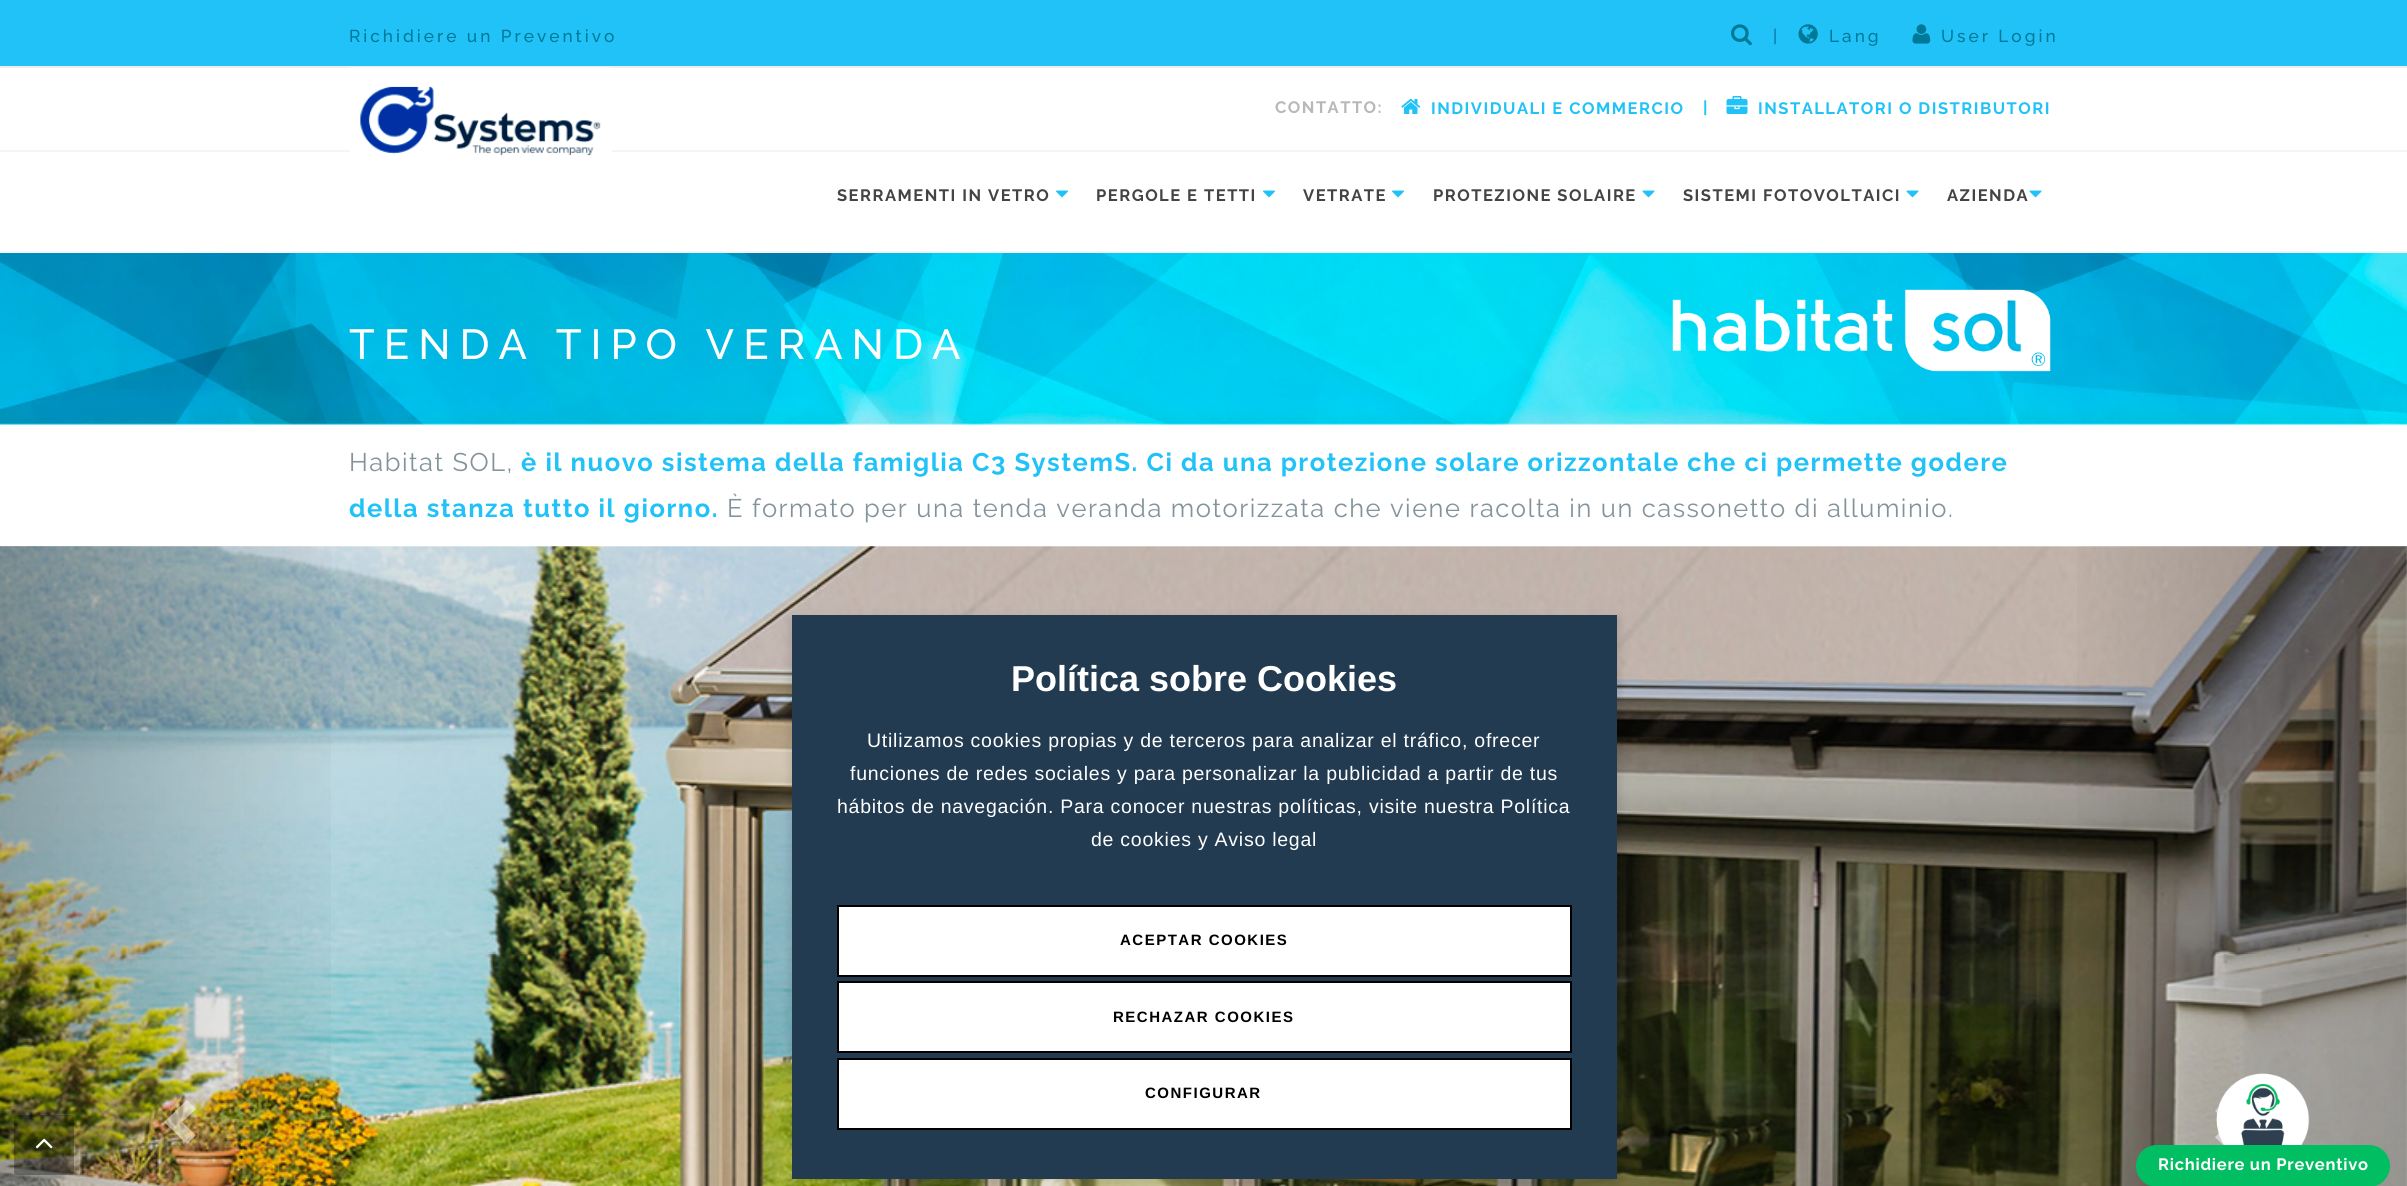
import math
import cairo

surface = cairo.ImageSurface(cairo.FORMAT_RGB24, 2407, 1186)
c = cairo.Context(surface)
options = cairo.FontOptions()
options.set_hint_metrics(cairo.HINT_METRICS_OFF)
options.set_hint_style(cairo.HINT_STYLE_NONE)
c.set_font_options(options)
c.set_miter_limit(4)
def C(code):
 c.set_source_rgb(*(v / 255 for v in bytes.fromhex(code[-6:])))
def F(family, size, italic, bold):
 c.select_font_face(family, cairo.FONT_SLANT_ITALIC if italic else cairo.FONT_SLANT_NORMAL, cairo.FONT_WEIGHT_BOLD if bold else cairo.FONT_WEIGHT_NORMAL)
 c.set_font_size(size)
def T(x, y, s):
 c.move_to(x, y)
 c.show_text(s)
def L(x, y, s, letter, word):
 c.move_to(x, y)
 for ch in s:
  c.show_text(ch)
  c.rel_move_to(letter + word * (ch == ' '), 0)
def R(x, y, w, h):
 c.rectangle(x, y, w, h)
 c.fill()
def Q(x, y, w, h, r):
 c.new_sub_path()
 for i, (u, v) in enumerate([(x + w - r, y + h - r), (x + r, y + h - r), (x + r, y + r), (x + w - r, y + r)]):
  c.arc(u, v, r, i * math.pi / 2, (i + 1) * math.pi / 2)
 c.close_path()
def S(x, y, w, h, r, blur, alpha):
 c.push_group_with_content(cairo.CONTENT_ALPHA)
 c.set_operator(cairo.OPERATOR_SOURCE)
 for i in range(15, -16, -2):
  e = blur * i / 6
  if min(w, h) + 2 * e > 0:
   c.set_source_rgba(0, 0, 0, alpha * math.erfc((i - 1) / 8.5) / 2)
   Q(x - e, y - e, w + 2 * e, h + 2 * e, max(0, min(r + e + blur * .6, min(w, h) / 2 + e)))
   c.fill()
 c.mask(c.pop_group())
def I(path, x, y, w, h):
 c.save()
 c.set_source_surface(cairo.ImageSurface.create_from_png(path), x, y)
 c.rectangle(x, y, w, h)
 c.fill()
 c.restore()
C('ffffff')
c.paint()
C('21c2f8')
R(0,0,2407,66)
C('eeeeee')
R(0,66,2407,2)
F('Raleway Medium',17.25,0,0)
C('007897')
L(349,42,'Richidiere un Preventivo',3,0)
I('1.png',1731,24,21,22)
L(1773,42,'|',3,0)
I('2.png',1798,24,20,20)
L(1829,42,'Lang',3,0)
I('3.png',1912,24,19,20)
L(1941,42,'User Login',3,0)
C('f5f5f5')
R(0,251,2407,2)
R(0,150,2407,2)
I('4.png',349,67,263,89)
F('Raleway',16.5,0,1)
C('b8b8b8')
L(1275,113,'CONTATTO:',1.5,0)
I('5.png',1401,99,20,15)
C('21c2f8')
L(1431,114,'INDIVIDUALI E COMMERCIO',1.5,0)
L(1703,113,'|',1.5,0)
I('6.png',1726,96,22,18)
L(1758,114,'INSTALLATORI O DISTRIBUTORI',1.5,0)
C('444444')
L(837,201,'SERRAMENTI IN VETRO',1.5,0)
I('7.png',1056,190,12,8)
L(1096,201,'PERGOLE E TETTI',1.5,0)
I('7.png',1263,190,12,8)
L(1303,201,'VETRATE',1.5,0)
I('7.png',1392,190,12,8)
L(1433,201,'PROTEZIONE SOLAIRE',1.5,0)
I('8.png',1642,190,13,8)
L(1683,201,'SISTEMI FOTOVOLTAICI',1.5,0)
I('8.png',1906,190,13,8)
L(1947,201,'AZIENDA',1.5,0)
I('8.png',2029,190,13,8)
I('9.png',0,253,2407,172)
F('Raleway Medium',42,0,0)
C('ffffff')
L(349,359,'TENDA TIPO VERANDA',9,0)
I('10.png',1672,289,379,83)
F('Raleway',25.5,0,0)
C('83939c')
L(349,471,'Habitat SOL,',1.5,0)
F('Raleway',25.5,0,1)
C('21c2f8')
L(521,471,'è il nuovo sistema della famiglia C3 SystemS. Ci da una protezione solare orizzontale che ci permette godere',1.5,0)
L(349,517,'della stanza tutto il giorno.',1.5,0)
F('Raleway',25.5,0,0)
C('83939c')
L(727,517,'È formato per una tenda veranda motorizzata che viene racolta in un cassonetto di alluminio.',1.5,0)
I('11.png',0,546,2407,640)
gradient = cairo.LinearGradient(0,1122,362,1122)
gradient.add_color_stop_rgba(0,0,0,0,.25)
gradient.add_color_stop_rgba(1,0,0,0,0)
c.set_source(gradient)
R(0,546,331,640)
c.set_source_rgba(1,1,1,0.5)
c.new_path()
c.move_to(164,1122)
c.line_to(187,1144)
c.line_to(196,1135)
c.line_to(182,1122)
c.line_to(196,1109)
c.line_to(187,1100)
c.close_path()
c.fill()
gradient = cairo.LinearGradient(2046,1122,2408,1122)
gradient.add_color_stop_rgba(0,0,0,0,0)
gradient.add_color_stop_rgba(1,0,0,0,.25)
c.set_source(gradient)
R(2077,546,330,640)
c.set_source_rgba(1,1,1,0.5)
c.new_path()
c.move_to(2215,1137)
c.line_to(2228,1124)
c.line_to(2215,1111)
c.line_to(2224,1102)
c.line_to(2246,1124)
c.line_to(2224,1146)
c.close_path()
c.fill()
C('000000')
S(789,618,831,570,0,5,.12)
C('223b51')
R(792,615,825,564)
F('Liberation Sans',36,0,1)
C('ffffff')
T(1011,691,'Política sobre Cookies')
F('Liberation Sans',19.5,0,0)
L(867,747,'Utilizamos cookies propias y de terceros para analizar el tráfico, ofrecer',.75,0)
L(850,780,'funciones de redes sociales y para personalizar la publicidad a partir de tus',.75,0)
L(837,813,'hábitos de navegación. Para conocer nuestras políticas, visite nuestra Política',.75,0)
L(1091,846,'de cookies y Aviso legal',.75,0)
c.rectangle(838,906,733,70)
c.fill_preserve()
C('000000')
c.stroke()
F('Liberation Sans',15,0,1)
L(1120,945,'ACEPTAR COOKIES',1.5,0)
C('ffffff')
c.rectangle(838,982,733,70)
c.fill_preserve()
C('000000')
c.stroke()
L(1113,1022,'RECHAZAR COOKIES',1.5,0)
C('ffffff')
c.rectangle(838,1059,733,70)
c.fill_preserve()
C('000000')
c.stroke()
L(1145,1098,'CONFIGURAR',1.5,0)
c.set_source_rgba(0,0,0,0.3)
Q(14,1115,60,60,3)
c.fill()
I('12.png',35,1138,18,11)
I('13.png',2216,1073,94,72)
C('01be62')
Q(2136,1145,254,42,21)
c.fill()
F('Raleway',16.5,0,1)
C('ffffff')
L(2158,1170,'Richidiere un Preventivo',.75,0)
surface.write_to_png('o.png')
